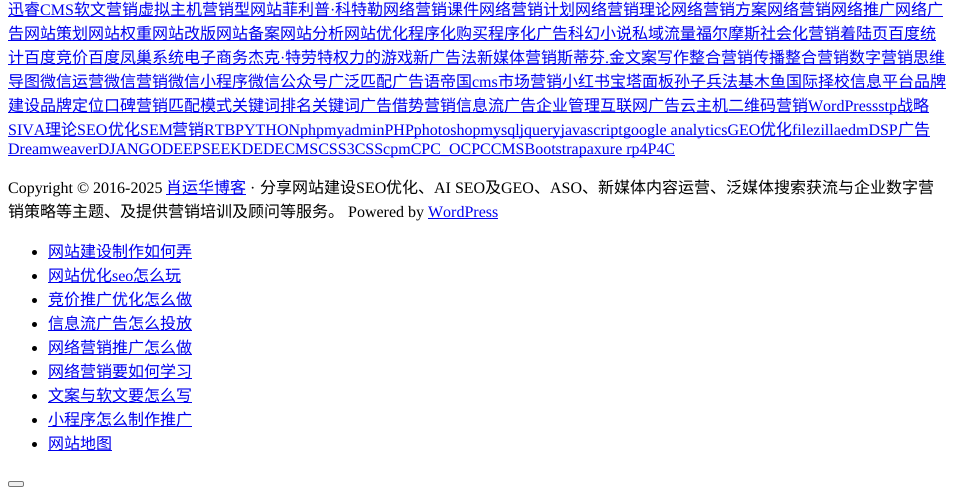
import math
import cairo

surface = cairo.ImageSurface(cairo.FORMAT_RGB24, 954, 496)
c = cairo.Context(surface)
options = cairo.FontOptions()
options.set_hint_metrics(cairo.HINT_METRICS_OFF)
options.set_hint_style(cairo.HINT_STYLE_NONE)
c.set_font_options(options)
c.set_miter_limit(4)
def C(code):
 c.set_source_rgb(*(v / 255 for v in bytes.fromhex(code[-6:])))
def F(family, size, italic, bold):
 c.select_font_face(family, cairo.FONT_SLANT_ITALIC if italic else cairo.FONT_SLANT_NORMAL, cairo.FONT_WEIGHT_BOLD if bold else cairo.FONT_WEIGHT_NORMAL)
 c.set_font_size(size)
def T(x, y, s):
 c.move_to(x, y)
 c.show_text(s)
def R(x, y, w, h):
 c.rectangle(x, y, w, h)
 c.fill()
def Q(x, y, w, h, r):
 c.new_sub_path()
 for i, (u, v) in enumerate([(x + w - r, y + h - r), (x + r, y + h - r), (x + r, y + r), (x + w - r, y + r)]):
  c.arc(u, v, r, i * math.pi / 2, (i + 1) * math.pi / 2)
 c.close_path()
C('ffffff')
c.paint()
C('0000ee')
R(8,16,935,1)
F('Noto Sans CJK SC',16,0,0)
T(8,15,'迅睿')
F('Liberation Serif',16,0,0)
T(40,15,'CMS')
F('Noto Sans CJK SC',16,0,0)
T(74,15,'软文营销虚拟主机营销型网站菲利普')
F('Liberation Serif',16,0,0)
T(330,15,'·')
F('Noto Sans CJK SC',16,0,0)
T(335,15,'科特勒网络营销课件网络营销计划网络营销理论网络营销方案网络营销网络推广网络广')
R(8,40,928,1)
T(8,39,'告网站策划网站权重网站改版网站备案网站分析网站优化程序化购买程序化广告科幻小说私域流量福尔摩斯社会化营销着陆页百度统')
R(8,64,938,1)
T(8,63,'计百度竞价百度凤巢系统电子商务杰克')
F('Liberation Serif',16,0,0)
T(280,63,'·')
F('Noto Sans CJK SC',16,0,0)
T(285,63,'特劳特权力的游戏新广告法新媒体营销斯蒂芬')
T(609,63,'金文案写作整合营销传播整合营销数字营销思维')
F('Liberation Serif',16,0,0)
T(605,63,'.')
R(8,88,938,1)
F('Noto Sans CJK SC',16,0,0)
T(8,87,'导图微信运营微信营销微信小程序微信公众号广泛匹配广告语帝国')
F('Liberation Serif',16,0,0)
T(472,87,'cms')
F('Noto Sans CJK SC',16,0,0)
T(498,87,'市场营销小红书宝塔面板孙子兵法基木鱼国际择校信息平台品牌')
R(8,112,921,1)
T(8,111,'建设品牌定位口碑营销匹配模式关键词排名关键词广告借势营销信息流广告企业管理互联网广告云主机二维码营销')
F('Liberation Serif',16,0,0)
T(808,111,'WordPressstp')
F('Noto Sans CJK SC',16,0,0)
T(897,111,'战略')
F('Liberation Serif',16,0,0)
T(8,135,'SIVA')
R(8,136,615,1)
F('Noto Sans CJK SC',16,0,0)
T(45,135,'理论')
F('Liberation Serif',16,0,0)
T(77,135,'SEO')
F('Noto Sans CJK SC',16,0,0)
T(108,135,'优化')
F('Liberation Serif',16,0,0)
T(140,135,'SEM')
F('Noto Sans CJK SC',16,0,0)
T(172,135,'营销')
F('Liberation Serif',16,0,0)
T(204,135,'RTBPYTHONphpmyadminPHPphotoshopmysqljqueryjavascript')
R(623,136,307,1)
T(623,135,'google analyticsGEO')
F('Noto Sans CJK SC',16,0,0)
T(760,135,'优化')
F('Liberation Serif',16,0,0)
T(792,135,'filezillaedmDSP')
F('Noto Sans CJK SC',16,0,0)
T(898,135,'广告')
R(8,155,667,1)
F('Liberation Serif',16,0,0)
T(8,154,'DreamweaverDJANGODEEPSEEKDEDECMSCSS3CSScpmCPC_OCPCCMSBootstrapaxure rp4P4C')
C('000000')
T(8,193,'Copyright © 2016-2025')
C('0000ee')
R(166,194,80,1)
F('Noto Sans CJK SC',16,0,0)
T(166,193,'肖运华博客')
F('Liberation Serif',16,0,0)
C('000000')
T(250,193,'·')
F('Noto Sans CJK SC',16,0,0)
T(260,193,'分享网站建设')
F('Liberation Serif',16,0,0)
T(356,193,'SEO')
F('Noto Sans CJK SC',16,0,0)
T(386,193,'优化、')
F('Liberation Serif',16,0,0)
T(434,193,'AI SEO')
F('Noto Sans CJK SC',16,0,0)
T(485,193,'及')
F('Liberation Serif',16,0,0)
T(501,193,'GEO')
T(550,193,'ASO')
F('Noto Sans CJK SC',16,0,0)
T(582,193,'、新媒体内容运营、泛媒体搜索获流与企业数字营')
T(534,193,'、')
T(8,217,'销策略等主题、及提供营销培训及顾问等服务。')
F('Liberation Serif',16,0,0)
T(348,217,'Powered by')
C('0000ee')
T(428,217,'WordPress')
R(428,218,70,1)
C('000000')
c.new_path()
c.arc(34.5,252.5,2.5,0,2 * math.pi)
c.fill()
C('0000ee')
R(48,258,144,1)
F('Noto Sans CJK SC',16,0,0)
T(48,257,'网站建设制作如何弄')
C('000000')
c.new_path()
c.arc(34.5,276.5,2.5,0,2 * math.pi)
c.fill()
C('0000ee')
R(48,282,133,1)
T(48,281,'网站优化')
F('Liberation Serif',16,0,0)
T(112,281,'seo')
F('Noto Sans CJK SC',16,0,0)
T(133,281,'怎么玩')
C('000000')
c.new_path()
c.arc(34.5,300.5,2.5,0,2 * math.pi)
c.fill()
C('0000ee')
R(48,306,144,1)
T(48,305,'竞价推广优化怎么做')
C('000000')
c.new_path()
c.arc(34.5,324.5,2.5,0,2 * math.pi)
c.fill()
C('0000ee')
R(48,330,144,1)
T(48,329,'信息流广告怎么投放')
C('000000')
c.new_path()
c.arc(34.5,348.5,2.5,0,2 * math.pi)
c.fill()
C('0000ee')
R(48,354,144,1)
T(48,353,'网络营销推广怎么做')
C('000000')
c.new_path()
c.arc(34.5,372.5,2.5,0,2 * math.pi)
c.fill()
C('0000ee')
R(48,378,144,1)
T(48,377,'网络营销要如何学习')
C('000000')
c.new_path()
c.arc(34.5,396.5,2.5,0,2 * math.pi)
c.fill()
C('0000ee')
R(48,402,144,1)
T(48,401,'文案与软文要怎么写')
C('000000')
c.new_path()
c.arc(34.5,420.5,2.5,0,2 * math.pi)
c.fill()
C('0000ee')
R(48,426,144,1)
T(48,425,'小程序怎么制作推广')
C('000000')
c.new_path()
c.arc(34.5,444.5,2.5,0,2 * math.pi)
c.fill()
C('0000ee')
R(48,450,64,1)
T(48,449,'网站地图')
C('efefef')
Q(8.5,481.5,15,5,1.5)
c.fill_preserve()
C('767676')
c.set_line_width(1)
c.stroke()
surface.write_to_png('o.png')
